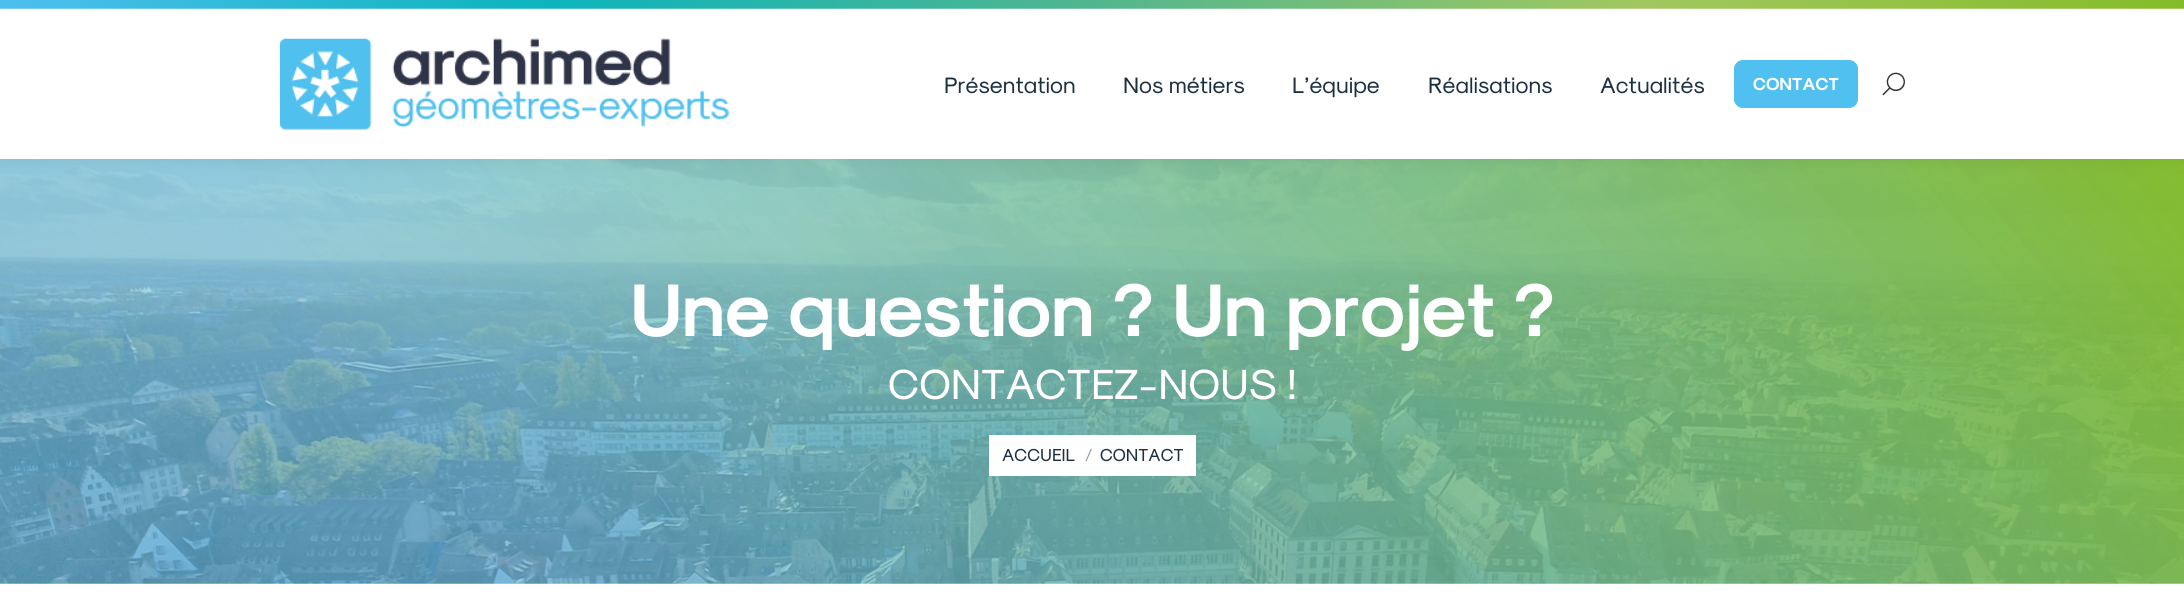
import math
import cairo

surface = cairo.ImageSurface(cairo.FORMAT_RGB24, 2184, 609)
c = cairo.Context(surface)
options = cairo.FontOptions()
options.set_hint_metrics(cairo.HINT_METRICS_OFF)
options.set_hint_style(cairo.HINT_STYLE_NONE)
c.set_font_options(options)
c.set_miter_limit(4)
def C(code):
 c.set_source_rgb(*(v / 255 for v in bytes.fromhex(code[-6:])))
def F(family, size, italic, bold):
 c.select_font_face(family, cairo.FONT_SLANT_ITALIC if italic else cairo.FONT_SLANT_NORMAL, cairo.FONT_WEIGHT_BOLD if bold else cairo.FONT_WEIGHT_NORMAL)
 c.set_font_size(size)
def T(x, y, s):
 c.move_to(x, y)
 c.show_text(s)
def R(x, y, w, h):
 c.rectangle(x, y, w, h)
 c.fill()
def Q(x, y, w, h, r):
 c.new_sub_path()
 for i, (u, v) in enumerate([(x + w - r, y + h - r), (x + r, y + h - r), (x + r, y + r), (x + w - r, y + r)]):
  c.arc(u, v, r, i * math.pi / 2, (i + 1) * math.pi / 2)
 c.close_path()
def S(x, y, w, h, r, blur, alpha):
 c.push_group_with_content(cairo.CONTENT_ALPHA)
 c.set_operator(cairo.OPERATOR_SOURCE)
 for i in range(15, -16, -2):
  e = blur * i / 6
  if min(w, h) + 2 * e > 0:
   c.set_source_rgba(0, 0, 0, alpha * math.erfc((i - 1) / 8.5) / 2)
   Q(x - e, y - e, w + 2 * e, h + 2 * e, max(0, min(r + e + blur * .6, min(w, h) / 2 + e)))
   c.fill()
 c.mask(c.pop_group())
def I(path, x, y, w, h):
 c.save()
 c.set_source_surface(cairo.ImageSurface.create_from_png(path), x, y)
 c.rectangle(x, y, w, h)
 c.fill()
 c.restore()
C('ffffff')
c.paint()
I('1.png',0,0,2184,9)
I('4.png',0,159,2184,425)
c.save()
c.rectangle(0,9,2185,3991)
c.clip()
C('000000')
S(-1,8,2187,152,0,9.5,.07)
c.restore()
C('ffffff')
R(0,9,2184,150)
I('2.png',280,38,449,92)
F('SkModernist',22.5,0,0)
C('1d3042')
T(944,93,'Présentation')
T(1123,93,'Nos métiers')
T(1292,93,'L’équipe')
T(1428,93,'Réalisations')
T(1600,93,'Actualités')
C('4fc0ef')
Q(1734,60,124,48,9)
c.fill()
F('SkModernist',17.5,0,1)
C('ffffff')
T(1753,90,'CONTACT')
I('3.png',1882,72,23,24)
F('SkModernist',75,0,1)
T(630,336,'Une question ? Un projet ?')
F('SkModernist',42.5,0,0)
T(888,399,'CONTACTEZ-NOUS !')
R(989,435,207,41)
F('SkModernist',17.5,0,0)
C('1d3042')
T(1002,461,'ACCUEIL')
C('8e98a1')
T(1085,461,'/')
C('1d3042')
T(1100,461,'CONTACT')
surface.write_to_png('o.png')
